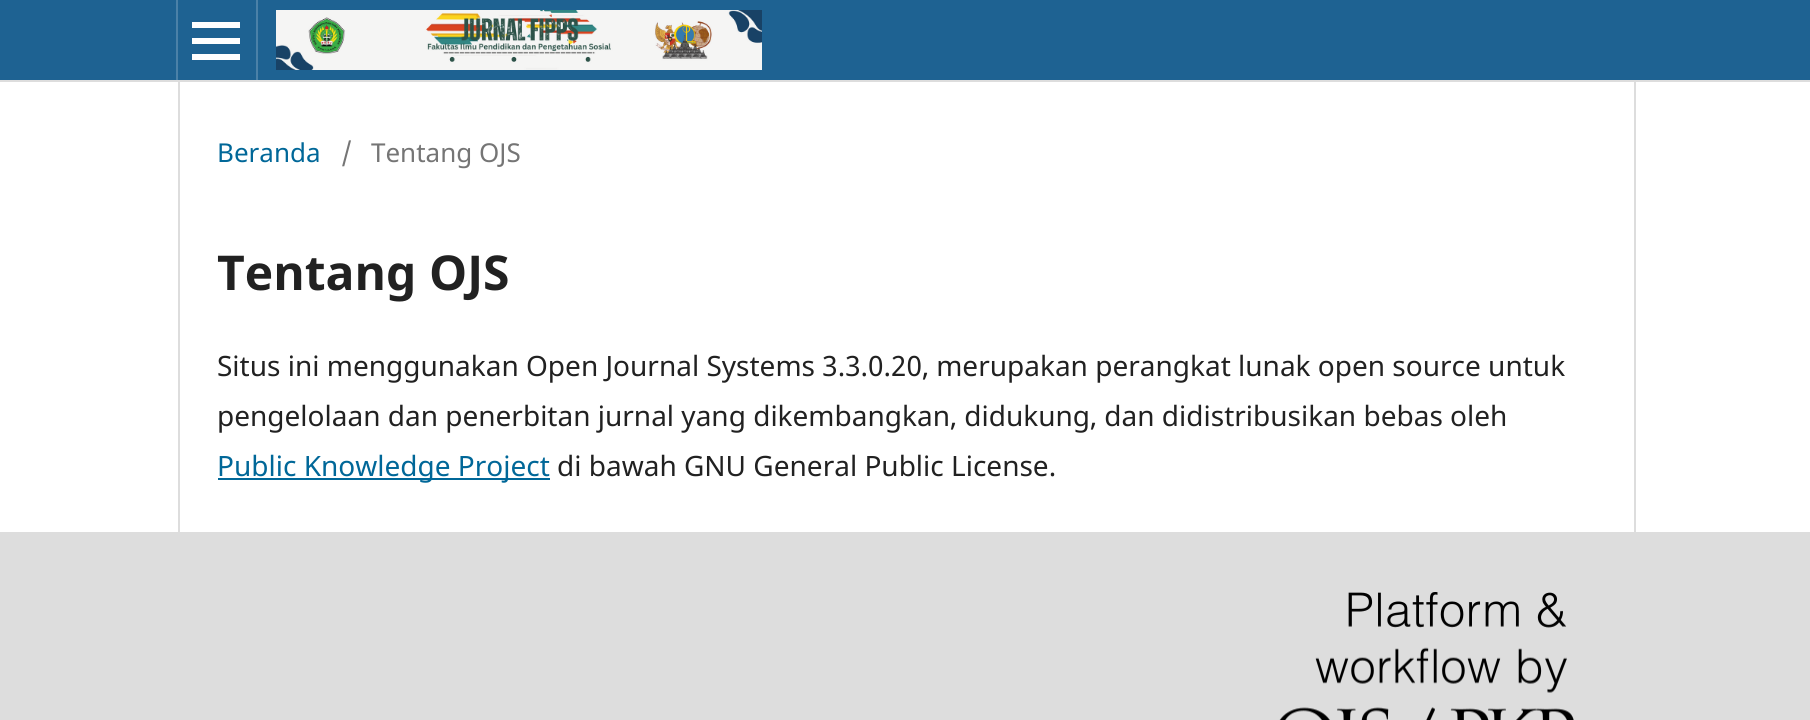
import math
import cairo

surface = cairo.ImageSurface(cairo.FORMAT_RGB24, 1810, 720)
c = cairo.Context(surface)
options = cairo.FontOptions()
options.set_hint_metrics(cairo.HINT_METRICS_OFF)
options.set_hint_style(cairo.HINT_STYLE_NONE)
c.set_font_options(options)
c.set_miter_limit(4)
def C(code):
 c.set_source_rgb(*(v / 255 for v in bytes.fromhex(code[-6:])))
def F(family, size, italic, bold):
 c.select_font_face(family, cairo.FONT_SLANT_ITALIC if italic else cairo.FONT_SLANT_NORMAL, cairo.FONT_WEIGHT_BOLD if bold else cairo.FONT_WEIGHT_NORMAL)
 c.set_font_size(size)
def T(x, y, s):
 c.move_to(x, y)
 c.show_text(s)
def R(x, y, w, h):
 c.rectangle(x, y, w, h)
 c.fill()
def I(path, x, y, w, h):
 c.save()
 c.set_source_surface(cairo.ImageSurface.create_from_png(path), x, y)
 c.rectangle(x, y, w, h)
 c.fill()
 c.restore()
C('ffffff')
c.paint()
C('1e6292')
R(0,0,1810,80)
C('dddddd')
R(0,80,1810,2)
C('4b81a8')
R(176,0,2,80)
R(256,0,2,80)
C('ffffff')
R(192,54,48,6)
R(192,22,48,6)
R(192,38,48,6)
I('1.png',276,10,486,60)
C('dddddd')
R(178,82,2,450)
F('Noto Sans',26,0,0)
C('006798')
T(217,162,'Beranda')
C('757575')
T(341,162,'/')
T(371,162,'Tentang OJS')
F('Noto Sans',48,0,1)
C('212121')
T(217,290,'Tentang OJS')
F('Noto Sans',28,0,0)
T(217,376,'Situs ini menggunakan Open Journal Systems 3.3.0.20, merupakan perangkat lunak open source untuk')
T(217,426,'pengelolaan dan penerbitan jurnal yang dikembangkan, didukung, dan didistribusikan bebas oleh')
C('006798')
R(218,478,332,2)
T(217,476,'Public Knowledge Project')
C('212121')
T(557,476,'di bawah GNU General Public License.')
C('dddddd')
R(1634,82,2,450)
R(0,532,1810,188)
I('2.png',1279,592,295,128)
surface.write_to_png('o.png')
